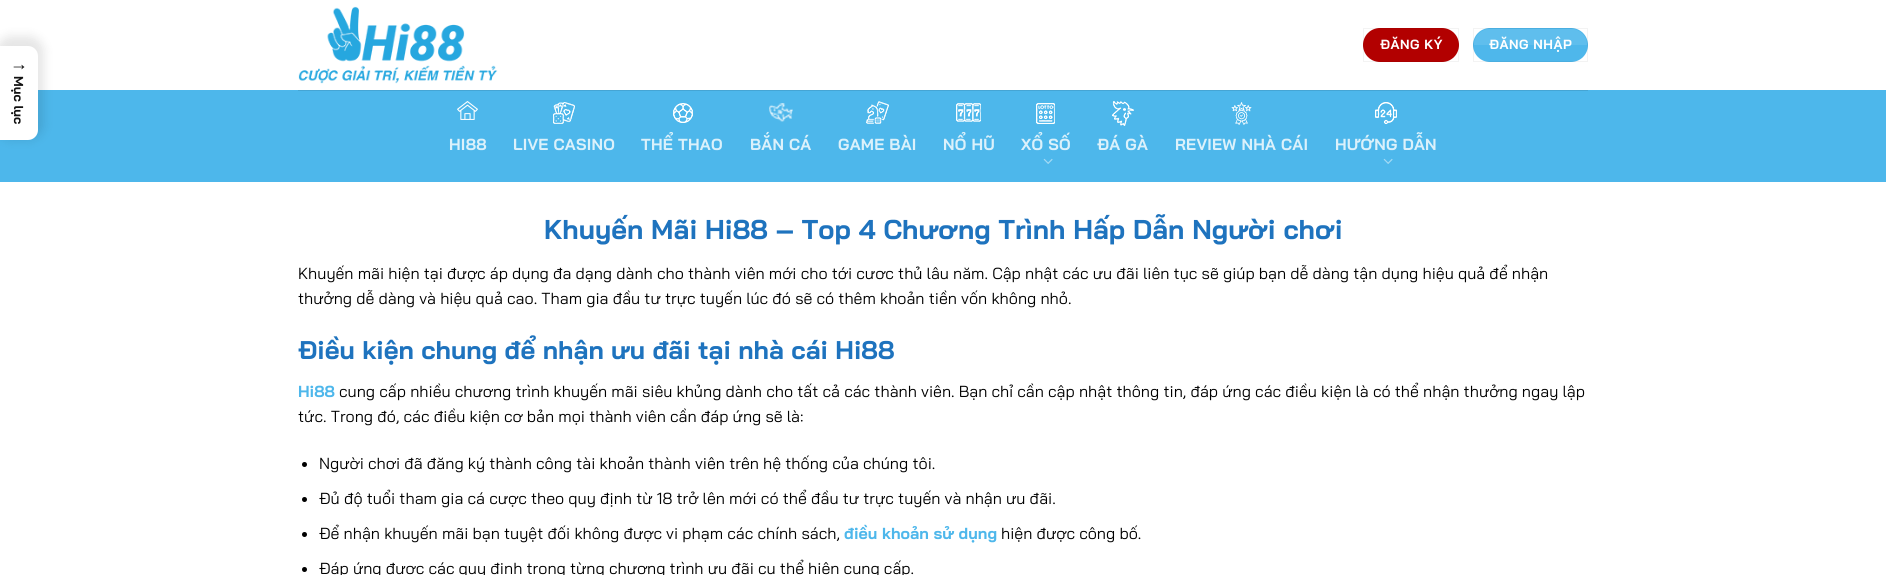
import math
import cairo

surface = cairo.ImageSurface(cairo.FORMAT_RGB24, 1886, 575)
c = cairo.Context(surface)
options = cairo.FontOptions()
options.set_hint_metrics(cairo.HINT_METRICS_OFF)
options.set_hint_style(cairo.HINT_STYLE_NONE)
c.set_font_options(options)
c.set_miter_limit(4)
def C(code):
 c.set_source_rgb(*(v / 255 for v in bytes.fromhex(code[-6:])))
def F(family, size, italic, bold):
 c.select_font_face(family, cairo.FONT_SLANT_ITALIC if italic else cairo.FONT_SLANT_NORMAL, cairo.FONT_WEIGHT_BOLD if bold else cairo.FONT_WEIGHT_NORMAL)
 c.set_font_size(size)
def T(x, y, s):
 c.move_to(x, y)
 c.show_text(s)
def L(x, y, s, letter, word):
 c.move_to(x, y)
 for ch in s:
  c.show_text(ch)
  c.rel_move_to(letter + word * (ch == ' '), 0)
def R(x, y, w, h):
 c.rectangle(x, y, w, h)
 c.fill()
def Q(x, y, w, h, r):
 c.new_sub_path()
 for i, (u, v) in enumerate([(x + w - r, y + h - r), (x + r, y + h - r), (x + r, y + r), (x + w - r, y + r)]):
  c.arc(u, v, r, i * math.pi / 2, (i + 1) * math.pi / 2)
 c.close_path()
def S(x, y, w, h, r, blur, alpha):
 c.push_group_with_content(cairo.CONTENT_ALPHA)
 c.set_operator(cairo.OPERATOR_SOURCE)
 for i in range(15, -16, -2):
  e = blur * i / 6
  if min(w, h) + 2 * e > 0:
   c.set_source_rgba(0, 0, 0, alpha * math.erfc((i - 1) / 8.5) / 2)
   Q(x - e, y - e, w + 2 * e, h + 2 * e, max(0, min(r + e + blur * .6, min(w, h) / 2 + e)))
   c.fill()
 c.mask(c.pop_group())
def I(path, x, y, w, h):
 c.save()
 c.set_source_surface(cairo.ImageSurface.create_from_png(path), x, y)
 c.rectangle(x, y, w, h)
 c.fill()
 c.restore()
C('ffffff')
c.paint()
C('4db7eb')
R(0,90,1886,92)
C('000000')
S(-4,36,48,104,15,5,.1)
C('ffffff')
c.new_path()
c.move_to(0,46)
c.line_to(28,46)
c.curve_to(33.5,46,38,50.5,38,56)
c.line_to(38,130)
c.curve_to(38,135.5,33.5,140,28,140)
c.line_to(0,140)
c.close_path()
c.fill()
F('Liberation Sans',18,0,1)
C('111111')
T(10,70,'→')
F('Bai Jamjuree',13,0,1)
c.save()
c.translate(14,76)
c.rotate(90 * math.pi / 180)
T(0,0,'Mục lục')
c.restore()
I('1.png',298,6,200,78)
C('b20000')
Q(1363,28,96,34,17)
c.fill()
c.rectangle(1363.5,28.5,95,33)
c.set_source_rgba(0,0,0,0.05)
c.set_line_width(1)
c.stroke()
F('Bai Jamjuree',13.25,0,1)
C('ffffff')
L(1380,49,'ĐĂNG KÝ',.5,0)
C('4eb7eb')
Q(1473,28,115,34,17)
c.fill()
c.rectangle(1473.5,28.5,114,33)
c.set_source_rgba(0,0,0,0.05)
c.stroke()
c.set_source_rgba(1,1,1,0.1)
c.new_path()
c.move_to(1490,29)
c.line_to(1571,29)
c.curve_to(1580,29,1587,36,1587,45)
c.line_to(1474,45)
c.curve_to(1474,36,1481,29,1490,29)
c.close_path()
c.fill()
C('ffffff')
L(1489,49,'ĐĂNG NHẬP',.5,0)
C('45a5d4')
R(298,90,1290,1)
I('2.png',457,101,21,19)
F('Bai Jamjuree',16,0,1)
C('dbf1fb')
L(449,150,'HI88',.25,0)
I('3.png',553,102,22,22)
L(513,150,'LIVE CASINO',.25,0)
I('4.png',673,103,20,20)
L(641,150,'THỂ THAO',.25,0)
I('5.png',769,103,24,19)
L(750,150,'BẮN CÁ',.25,0)
I('6.png',866,101,23,23)
L(838,150,'GAME BÀI',.25,0)
I('7.png',956,103,25,19)
L(943,150,'NỔ HŨ',.25,0)
I('8.png',1036,103,19,21)
L(1021,150,'XỔ SỐ',.25,0)
I('9.png',1043,158,10,6)
I('10.png',1112,101,22,25)
L(1097,150,'ĐÁ GÀ',.25,0)
I('11.png',1231,102,21,23)
L(1175,150,'REVIEW NHÀ CÁI',.25,0)
I('12.png',1375,102,22,22)
L(1335,150,'HƯỚNG DẪN',.25,0)
I('9.png',1383,158,10,6)
F('Bai Jamjuree',27.2,0,1)
C('1e73be')
T(544,239,'Khuyến Mãi Hi88 – Top 4 Chương Trình Hấp Dẫn Người chơi')
F('Bai Jamjuree',16,0,0)
C('000000')
T(298,279,'Khuyến mãi hiện tại được áp dụng đa dạng dành cho thành viên mới cho tới cươc thủ lâu năm. Cập nhật các ưu đãi liên tục sẽ giúp bạn dễ dàng tận dụng hiệu quả để nhận')
T(298,304,'thưởng dễ dàng và hiệu quả cao. Tham gia đầu tư trực tuyến lúc đó sẽ có thêm khoản tiền vốn không nhỏ.')
F('Bai Jamjuree',25.6,0,1)
C('1e73be')
T(298,359,'Điều kiện chung để nhận ưu đãi tại nhà cái Hi88')
F('Bai Jamjuree',16,0,1)
C('4eb7eb')
T(298,397,'Hi88')
F('Bai Jamjuree',16,0,0)
C('000000')
T(339,397,'cung cấp nhiều chương trình khuyến mãi siêu khủng dành cho tất cả các thành viên. Bạn chỉ cần cập nhật thông tin, đáp ứng các điều kiện là có thể nhận thưởng ngay lập')
T(298,422,'tức. Trong đó, các điều kiện cơ bản mọi thành viên cần đáp ứng sẽ là:')
c.new_path()
c.arc(304.5,464.5,2.5,0,2 * math.pi)
c.fill()
T(319,469,'Người chơi đã đăng ký thành công tài khoản thành viên trên hệ thống của chúng tôi.')
c.new_path()
c.arc(304.5,499.5,2.5,0,2 * math.pi)
c.fill()
T(319,504,'Đủ độ tuổi tham gia cá cược theo quy định từ 18 trở lên mới có thể đầu tư trực tuyến và nhận ưu đãi.')
c.new_path()
c.arc(304.5,534.5,2.5,0,2 * math.pi)
c.fill()
T(319,539,'Để nhận khuyến mãi bạn tuyệt đối không được vi phạm các chính sách,')
F('Bai Jamjuree',16,0,1)
C('4eb7eb')
T(844,539,'điều khoản sử dụng')
F('Bai Jamjuree',16,0,0)
C('000000')
T(1001,539,'hiện được công bố.')
c.new_path()
c.arc(304.5,569.5,2.5,0,2 * math.pi)
c.fill()
T(319,574,'Đáp ứng được các quy định trong từng chương trình ưu đãi cụ thể hiện cung cấp.')
surface.write_to_png('o.png')
